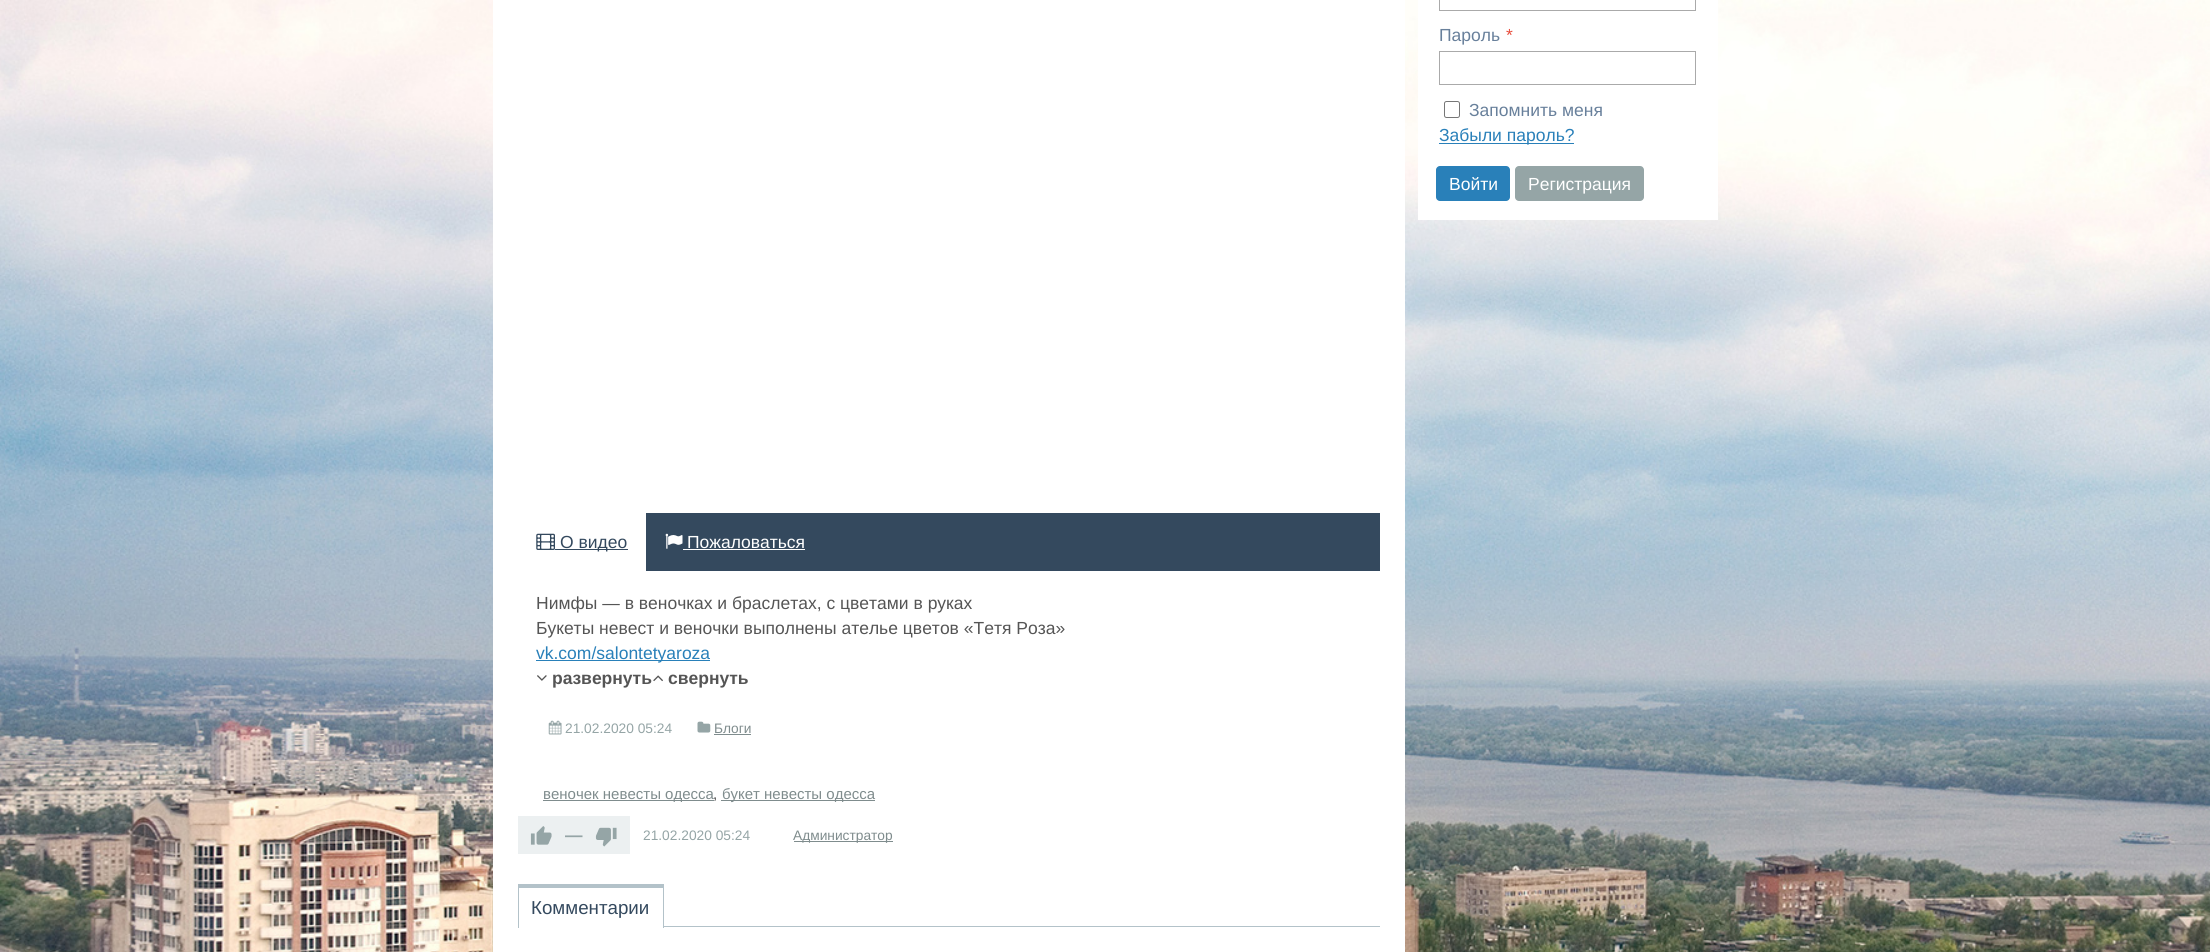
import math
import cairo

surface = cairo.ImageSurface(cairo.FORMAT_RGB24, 2210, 952)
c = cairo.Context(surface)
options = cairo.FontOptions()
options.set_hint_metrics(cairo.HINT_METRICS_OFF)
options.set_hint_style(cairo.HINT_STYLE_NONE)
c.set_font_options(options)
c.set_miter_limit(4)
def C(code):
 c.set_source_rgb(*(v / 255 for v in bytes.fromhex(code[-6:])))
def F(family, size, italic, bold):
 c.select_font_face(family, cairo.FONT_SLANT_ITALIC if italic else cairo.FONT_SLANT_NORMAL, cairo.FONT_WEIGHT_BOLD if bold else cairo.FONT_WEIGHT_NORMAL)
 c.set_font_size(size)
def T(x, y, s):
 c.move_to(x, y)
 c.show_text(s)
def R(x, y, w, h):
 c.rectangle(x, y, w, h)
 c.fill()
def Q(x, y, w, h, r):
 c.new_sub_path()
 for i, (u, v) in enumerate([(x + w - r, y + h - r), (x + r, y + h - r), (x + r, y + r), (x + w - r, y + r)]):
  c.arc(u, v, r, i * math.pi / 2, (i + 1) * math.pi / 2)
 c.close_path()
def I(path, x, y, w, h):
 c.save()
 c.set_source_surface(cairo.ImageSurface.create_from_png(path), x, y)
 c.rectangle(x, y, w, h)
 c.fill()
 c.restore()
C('ffffff')
c.paint()
I('1.png',0,0,2210,952)
C('ffffff')
R(1418,0,300,220)
c.rectangle(1439.5,-.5,256,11)
C('aaaaaa')
c.set_line_width(1)
c.stroke()
F('Liberation Sans',17.5,0,0)
C('68809b')
T(1439,41,'Пароль')
C('e74c3c')
T(1506,41,'*')
c.rectangle(1439.5,51.5,256,33)
C('aaaaaa')
c.stroke()
Q(1444.5,101.5,15,16,2)
C('767676')
c.stroke()
C('68809b')
T(1469,116,'Запомнить меня')
C('2980b9')
R(1439,143,135,1)
T(1439,141,'Забыли пароль?')
Q(1436,166,74,35,4)
c.fill()
C('ffffff')
T(1449,190,'Войти')
C('95a5a6')
Q(1515,166,129,35,4)
c.fill()
C('ffffff')
T(1528,190,'Регистрация')
R(493,0,912,952)
C('34495e')
R(646,513,734,58)
I('2.png',536,533,19,17)
R(555,549,73,1)
T(560,548,'О видео')
I('3.png',665,533,18,16)
C('ffffff')
T(687,548,'Пожаловаться')
R(683,549,122,1)
C('555555')
T(536,609,'Нимфы — в веночках и браслетах, с цветами в руках')
T(536,634,'Букеты невест и веночки выполнены ателье цветов «Тетя Роза»')
C('2980b9')
R(536,660,174,1)
T(536,659,'vk.com/salontetyaroza')
I('4.png',537,675,10,6)
F('Liberation Sans',17.5,0,1)
C('555555')
T(552,684,'развернуть')
I('5.png',653,675,10,7)
T(668,684,'свернуть')
I('6.png',548,720,14,15)
F('Liberation Sans',13.75,0,0)
C('95a5a6')
T(565,733,'21.02.2020 05:24')
I('7.png',697,721,14,12)
C('7f8c8d')
T(714,733,'Блоги')
R(714,734,37,1)
R(543,800,171,1)
F('Liberation Sans',15,0,0)
T(543,799,'веночек невесты одесса')
C('444444')
T(713,799,',')
C('7f8c8d')
R(721,800,154,1)
T(722,799,'букет невесты одесса')
C('ecf0f1')
R(518,816,112,38)
I('8.png',530,826,22,19)
F('Liberation Sans',17.5,0,1)
C('95a5a6')
T(565,841,'—')
I('9.png',595,827,22,20)
F('Liberation Sans',13.75,0,0)
T(643,840,'21.02.2020 05:24')
C('7f8c8d')
R(794,841,99,1)
T(793,840,'Администратор')
C('b3c2c9')
R(664,926,716,1)
R(518,884,146,4)
R(663,884,1,44)
R(518,884,1,44)
F('Liberation Sans',18.75,0,0)
C('34495e')
T(531,914,'Комментарии')
surface.write_to_png('o.png')
